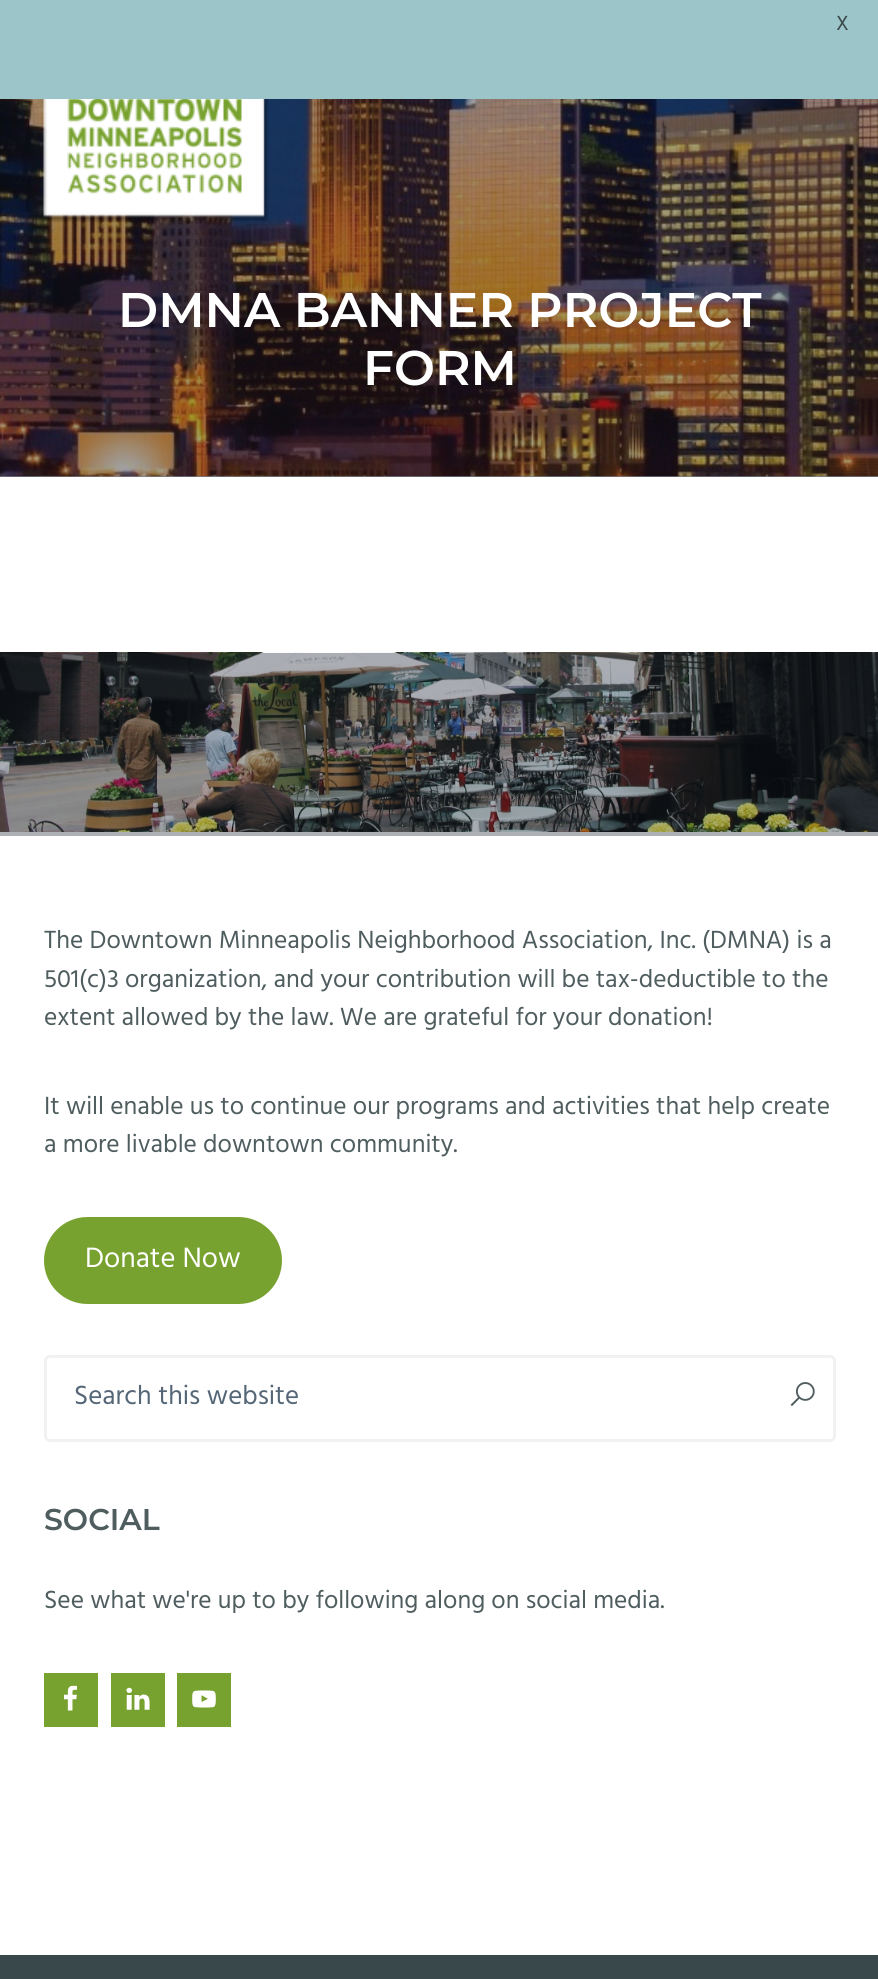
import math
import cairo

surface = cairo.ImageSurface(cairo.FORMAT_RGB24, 878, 1979)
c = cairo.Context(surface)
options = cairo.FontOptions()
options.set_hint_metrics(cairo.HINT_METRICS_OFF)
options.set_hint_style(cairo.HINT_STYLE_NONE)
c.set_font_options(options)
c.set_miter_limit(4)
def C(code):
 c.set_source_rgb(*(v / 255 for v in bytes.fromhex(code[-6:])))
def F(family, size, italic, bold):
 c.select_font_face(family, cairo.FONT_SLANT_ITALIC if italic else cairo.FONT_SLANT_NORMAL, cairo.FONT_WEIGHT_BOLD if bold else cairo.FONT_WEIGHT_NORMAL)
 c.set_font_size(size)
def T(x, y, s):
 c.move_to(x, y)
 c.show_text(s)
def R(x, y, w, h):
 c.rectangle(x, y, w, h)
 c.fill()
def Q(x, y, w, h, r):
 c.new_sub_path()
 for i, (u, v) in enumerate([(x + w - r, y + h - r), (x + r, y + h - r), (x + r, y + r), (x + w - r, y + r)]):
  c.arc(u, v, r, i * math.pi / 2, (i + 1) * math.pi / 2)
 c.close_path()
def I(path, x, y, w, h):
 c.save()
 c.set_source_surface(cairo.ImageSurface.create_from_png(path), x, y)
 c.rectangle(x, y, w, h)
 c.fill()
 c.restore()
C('9ca0a5')
c.paint()
C('9cc5ca')
R(0,0,878,99)
F('Hind',21,0,0)
C('39484a')
T(836,30,'X')
I('2.png',0,99,878,378)
I('1.png',43,99,226,123)
F('Montserrat SemiBold',48.6,0,0)
C('ffffff')
T(118,327,'DMNA BANNER PROJECT')
T(363,385,'FORM')
R(0,477,878,175)
R(0,836,878,1119)
C('adb0b4')
R(0,832,878,4)
I('3.png',0,652,878,180)
F('Hind',25.5,0,0)
C('4f5d5f')
T(44,948,'The Downtown Minneapolis Neighborhood Association, Inc. (DMNA) is a')
T(44,987,'501(c)3 organization, and your contribution will be tax-deductible to the')
T(44,1025,'extent allowed by the law. We are grateful for your donation!')
T(44,1114,'It will enable us to continue our programs and activities that help create')
T(44,1152,'a more livable downtown community.')
C('78a22f')
Q(44,1217,238,87,43.5)
c.fill()
F('Hind',28.75,0,0)
C('ffffff')
T(85,1267,'Donate Now')
Q(45.5,1356.5,789,84,4.5)
C('f0f1f2')
c.set_line_width(3)
c.stroke()
F('Hind',27,0,0)
C('556677')
T(74,1404,'Search this website')
I('4.png',790,1382,25,25)
F('Montserrat SemiBold',30,0,0)
C('4f5d5f')
T(44,1530,'SOCIAL')
F('Hind',25.5,0,0)
T(44,1608,'See what we\'re up to by following along on social media.')
C('78a22f')
R(44,1673,54,54)
I('5.png',64,1685,13,26)
R(111,1673,54,54)
I('6.png',126,1687,24,23)
R(177,1673,54,54)
I('7.png',192,1690,24,18)
C('39484a')
R(0,1955,878,24)
surface.write_to_png('o.png')
